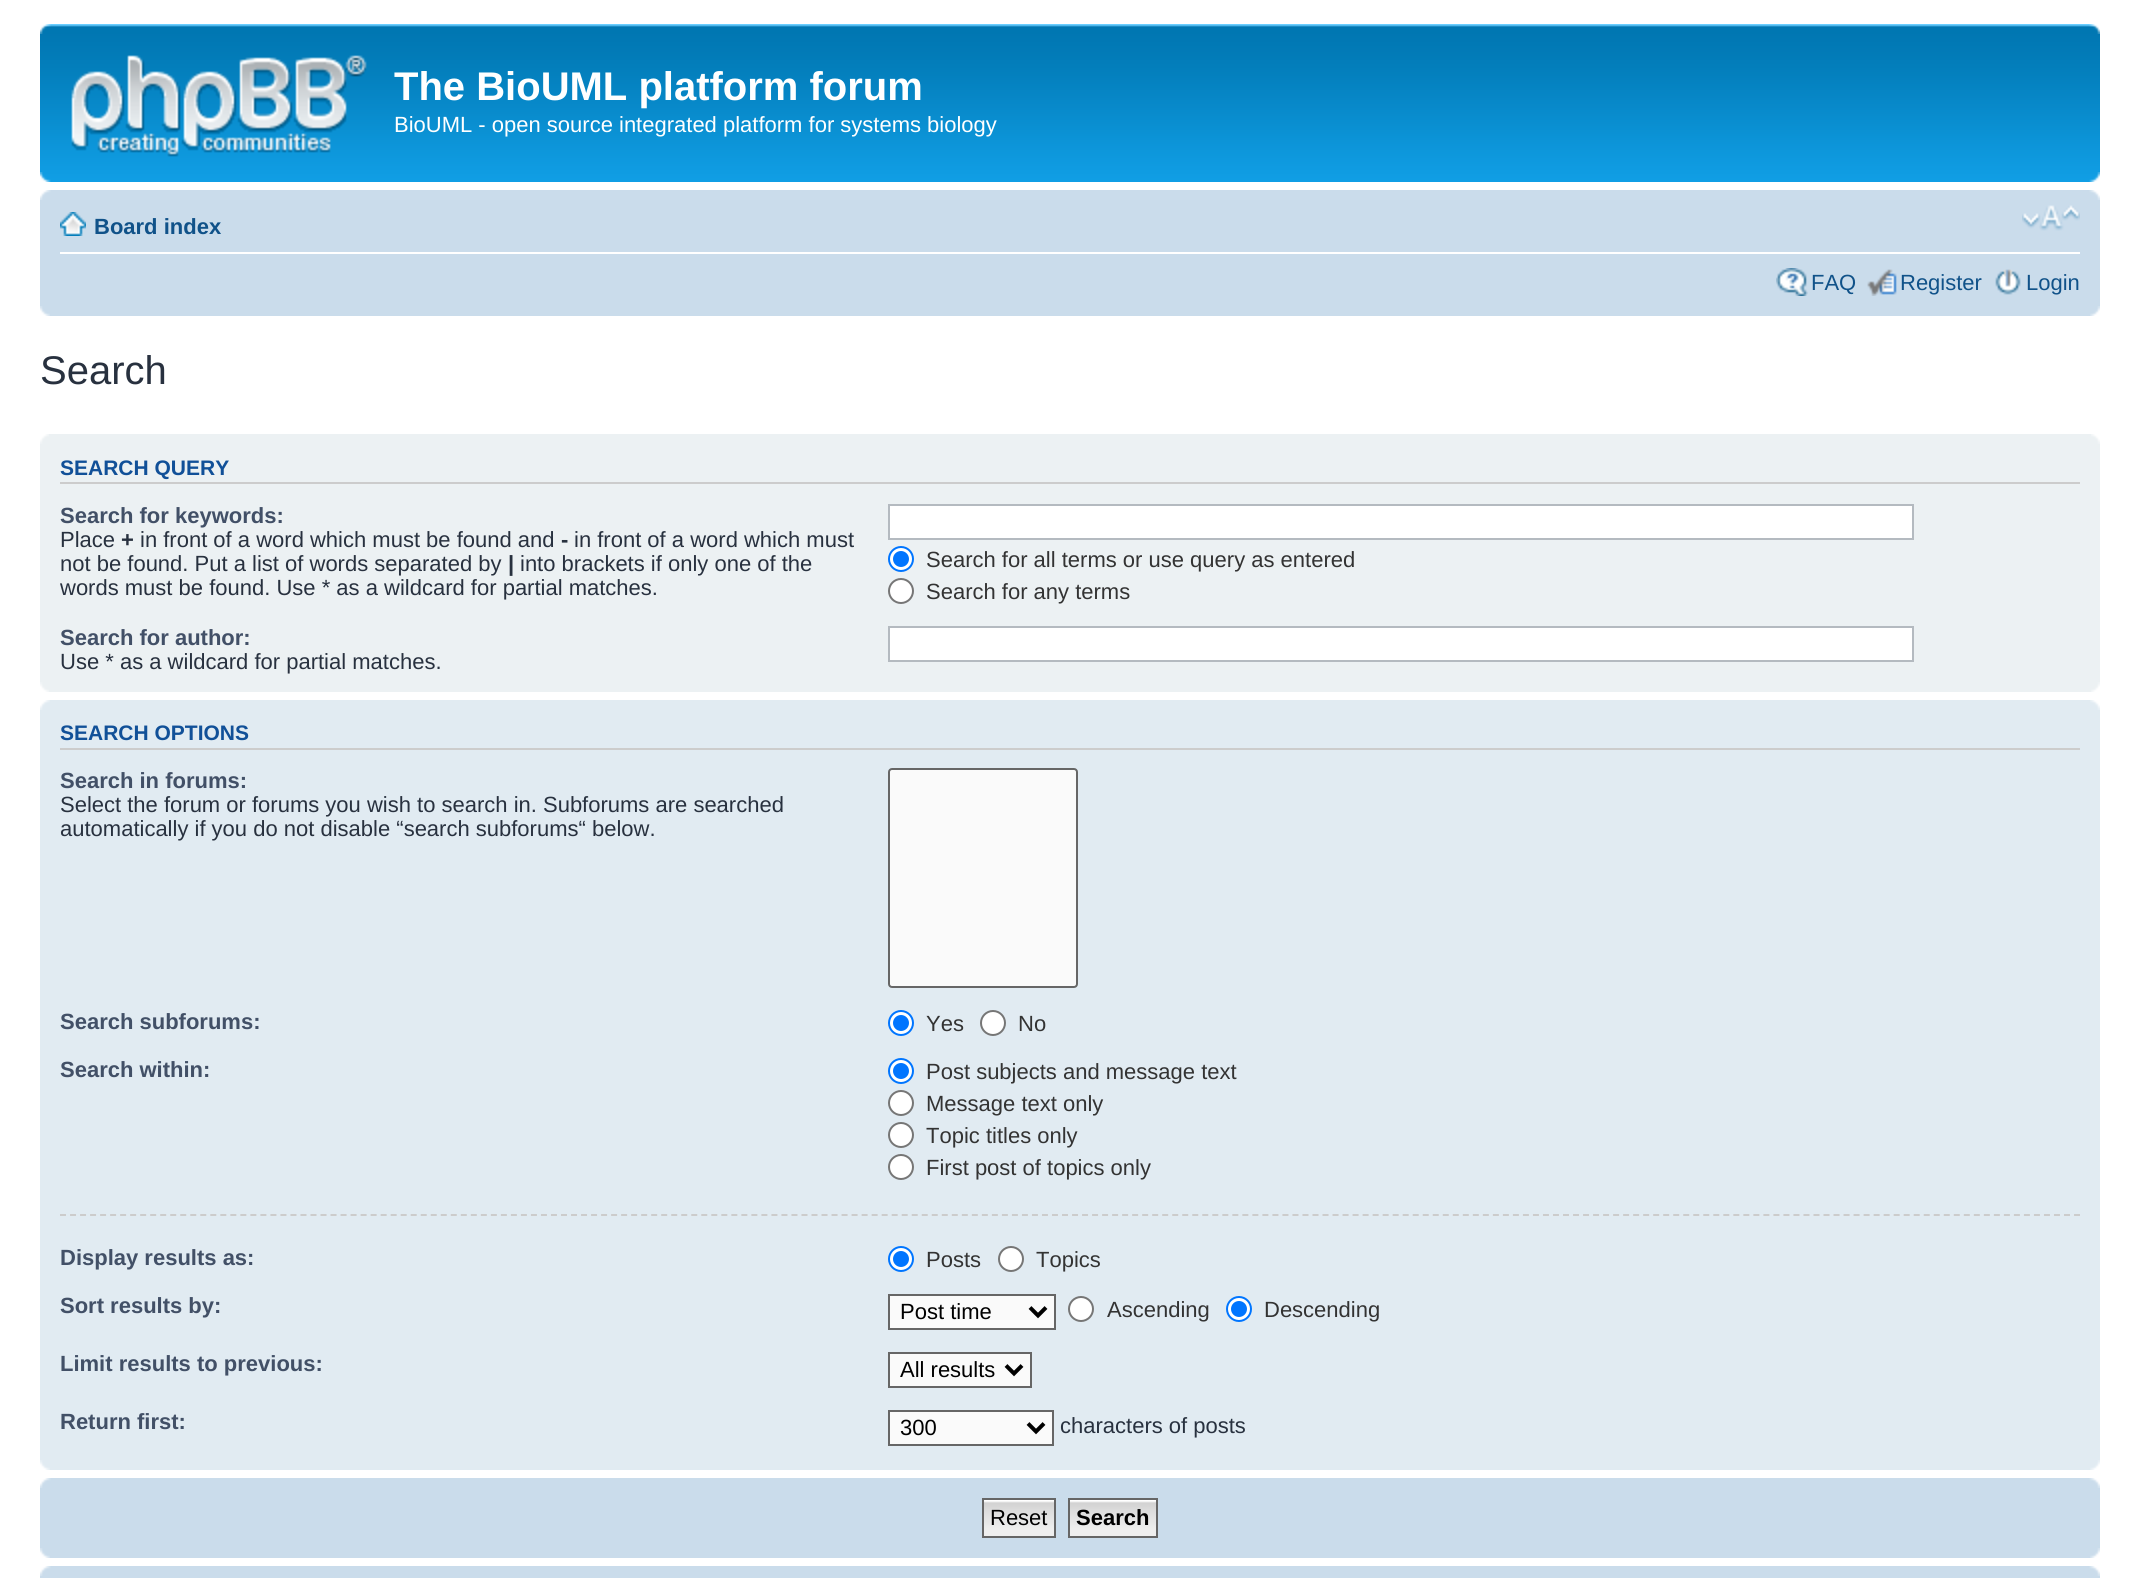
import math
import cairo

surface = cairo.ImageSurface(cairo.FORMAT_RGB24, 2139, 1578)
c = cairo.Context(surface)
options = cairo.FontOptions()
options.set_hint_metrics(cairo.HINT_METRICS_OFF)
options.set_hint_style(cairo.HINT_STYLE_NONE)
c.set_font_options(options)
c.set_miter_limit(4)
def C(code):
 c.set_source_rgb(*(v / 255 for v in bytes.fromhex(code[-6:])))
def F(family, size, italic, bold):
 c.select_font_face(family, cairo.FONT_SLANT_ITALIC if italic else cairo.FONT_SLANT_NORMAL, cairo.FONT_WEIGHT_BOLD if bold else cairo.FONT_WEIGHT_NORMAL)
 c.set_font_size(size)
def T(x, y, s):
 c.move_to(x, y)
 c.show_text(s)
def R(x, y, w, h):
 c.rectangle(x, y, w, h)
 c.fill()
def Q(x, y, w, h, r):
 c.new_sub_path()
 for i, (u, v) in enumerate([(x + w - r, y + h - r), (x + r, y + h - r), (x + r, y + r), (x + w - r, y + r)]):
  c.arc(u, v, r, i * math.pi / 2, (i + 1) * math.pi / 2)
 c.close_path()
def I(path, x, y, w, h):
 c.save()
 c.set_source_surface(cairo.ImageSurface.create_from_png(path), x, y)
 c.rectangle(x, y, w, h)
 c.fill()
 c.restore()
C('ffffff')
c.paint()
I('1.png',40,24,2060,158)
I('2.png',40,24,11,10)
I('3.png',2089,24,11,10)
I('4.png',71,55,296,102)
F('Liberation Sans',40,0,1)
C('ffffff')
T(394,100,'The BioUML platform forum')
F('Liberation Sans',22,0,0)
T(394,132,'BioUML - open source integrated platform for systems biology')
I('5.png',40,172,11,10)
I('6.png',2089,172,11,10)
C('cadceb')
R(40,190,2060,126)
I('7.png',40,190,11,10)
I('8.png',2089,190,11,10)
C('ffffff')
R(60,252,2020,2)
I('9.png',60,212,26,24)
F('Liberation Sans',22,0,1)
C('105289')
T(94,234,'Board index')
I('10.png',2022,205,58,26)
I('11.png',1776,268,32,28)
F('Liberation Sans',22,0,0)
T(1811,290,'FAQ')
I('12.png',1867,269,30,27)
T(1900,290,'Register')
I('13.png',1995,269,26,26)
T(2026,290,'Login')
I('14.png',40,306,10,10)
I('15.png',2090,306,10,10)
F('Liberation Sans',40,0,0)
C('28313f')
T(40,384,'Search')
C('ecf1f3')
R(40,434,2060,258)
I('16.png',40,434,9,10)
I('17.png',2091,434,9,10)
C('cccccc')
R(60,482,2020,2)
F('Liberation Sans',21,0,1)
C('115098')
T(60,475,'SEARCH QUERY')
F('Liberation Sans',22,0,1)
C('425067')
T(60,523,'Search for keywords:')
F('Liberation Sans',22,0,0)
C('28313f')
T(60,547,'Place')
F('Liberation Sans',22,0,1)
T(121,547,'+')
F('Liberation Sans',22,0,0)
T(140,547,'in front of a word which must be found and')
F('Liberation Sans',22,0,1)
T(561,547,'-')
F('Liberation Sans',22,0,0)
T(574,547,'in front of a word which must')
T(60,571,'not be found. Put a list of words separated by')
F('Liberation Sans',22,0,1)
T(508,571,'|')
F('Liberation Sans',22,0,0)
T(520,571,'into brackets if only one of the')
T(60,595,'words must be found. Use * as a wildcard for partial matches.')
C('ffffff')
c.rectangle(889,505,1024,34)
c.fill_preserve()
C('b4bac0')
c.stroke()
C('ffffff')
c.arc(901,559,12,0,2 * math.pi)
c.fill_preserve()
C('0075ff')
c.stroke()
c.arc(901,559,8,0,2 * math.pi)
c.fill()
C('333333')
T(926,567,'Search for all terms or use query as entered')
C('ffffff')
c.new_path()
c.arc(901,591,12,0,2 * math.pi)
c.fill_preserve()
C('767676')
c.stroke()
C('333333')
T(926,599,'Search for any terms')
F('Liberation Sans',22,0,1)
C('425067')
T(60,645,'Search for author:')
F('Liberation Sans',22,0,0)
C('28313f')
T(60,669,'Use * as a wildcard for partial matches.')
C('ffffff')
c.rectangle(889,627,1024,34)
c.fill_preserve()
C('b4bac0')
c.stroke()
I('18.png',40,682,9,10)
I('19.png',2091,682,9,10)
C('e1ebf2')
R(40,700,2060,770)
I('20.png',40,700,10,10)
I('21.png',2090,700,10,10)
C('cccccc')
R(60,748,2020,2)
F('Liberation Sans',21,0,1)
C('115098')
T(60,740,'SEARCH OPTIONS')
F('Liberation Sans',22,0,1)
C('425067')
T(60,788,'Search in forums:')
F('Liberation Sans',22,0,0)
C('28313f')
T(60,812,'Select the forum or forums you wish to search in. Subforums are searched')
T(60,836,'automatically if you do not disable “search subforums“ below.')
C('fafafa')
Q(889,769,188,218,3)
c.fill_preserve()
C('666666')
c.stroke()
F('Liberation Sans',22,0,1)
C('425067')
T(60,1029,'Search subforums:')
C('ffffff')
c.new_path()
c.arc(901,1023,12,0,2 * math.pi)
c.fill_preserve()
C('0075ff')
c.stroke()
c.arc(901,1023,8,0,2 * math.pi)
c.fill()
F('Liberation Sans',22,0,0)
C('333333')
T(926,1031,'Yes')
C('ffffff')
c.new_path()
c.arc(993,1023,12,0,2 * math.pi)
c.fill_preserve()
C('767676')
c.stroke()
C('333333')
T(1018,1031,'No')
F('Liberation Sans',22,0,1)
C('425067')
T(60,1077,'Search within:')
C('ffffff')
c.new_path()
c.arc(901,1071,12,0,2 * math.pi)
c.fill_preserve()
C('0075ff')
c.stroke()
c.arc(901,1071,8,0,2 * math.pi)
c.fill()
F('Liberation Sans',22,0,0)
C('333333')
T(926,1079,'Post subjects and message text')
C('ffffff')
c.new_path()
c.arc(901,1103,12,0,2 * math.pi)
c.fill_preserve()
C('767676')
c.stroke()
C('333333')
T(926,1111,'Message text only')
C('ffffff')
c.new_path()
c.arc(901,1135,12,0,2 * math.pi)
c.fill_preserve()
C('767676')
c.stroke()
C('333333')
T(926,1143,'Topic titles only')
C('ffffff')
c.new_path()
c.arc(901,1167,12,0,2 * math.pi)
c.fill_preserve()
C('767676')
c.stroke()
C('333333')
T(926,1175,'First post of topics only')
c.new_path()
c.move_to(60,1215)
c.line_to(2080,1215)
C('cccccc')
c.set_dash([6,4.02])
c.stroke()
F('Liberation Sans',22,0,1)
C('425067')
T(60,1265,'Display results as:')
C('ffffff')
c.new_path()
c.arc(901,1259,12,0,2 * math.pi)
c.fill_preserve()
C('0075ff')
c.set_dash([])
c.stroke()
c.arc(901,1259,8,0,2 * math.pi)
c.fill()
F('Liberation Sans',22,0,0)
C('333333')
T(926,1267,'Posts')
C('ffffff')
c.new_path()
c.arc(1011,1259,12,0,2 * math.pi)
c.fill_preserve()
C('767676')
c.stroke()
C('333333')
T(1036,1267,'Topics')
F('Liberation Sans',22,0,1)
C('425067')
T(60,1313,'Sort results by:')
C('fafafa')
c.rectangle(889,1295,166,34)
c.fill_preserve()
C('666666')
c.stroke()
c.new_path()
c.move_to(1030,1307.5)
c.line_to(1038,1315.5)
c.line_to(1046,1307.5)
C('000000')
c.set_line_width(4)
c.stroke()
F('Liberation Sans',22,0,0)
T(900,1319,'Post time')
C('ffffff')
c.new_path()
c.arc(1081,1309,12,0,2 * math.pi)
c.fill_preserve()
C('767676')
c.set_line_width(2)
c.stroke()
C('333333')
T(1107,1317,'Ascending')
C('ffffff')
c.new_path()
c.arc(1239,1309,12,0,2 * math.pi)
c.fill_preserve()
C('0075ff')
c.stroke()
c.arc(1239,1309,8,0,2 * math.pi)
c.fill()
C('333333')
T(1264,1317,'Descending')
F('Liberation Sans',22,0,1)
C('425067')
T(60,1371,'Limit results to previous:')
C('fafafa')
c.rectangle(889,1353,142,34)
c.fill_preserve()
C('666666')
c.stroke()
c.new_path()
c.move_to(1006,1365.5)
c.line_to(1014,1373.5)
c.line_to(1022,1365.5)
C('000000')
c.set_line_width(4)
c.stroke()
F('Liberation Sans',22,0,0)
T(900,1377,'All results')
F('Liberation Sans',22,0,1)
C('425067')
T(60,1429,'Return first:')
C('fafafa')
c.rectangle(889,1411,164,34)
c.fill_preserve()
C('666666')
c.set_line_width(2)
c.stroke()
c.new_path()
c.move_to(1028,1423.5)
c.line_to(1036,1431.5)
c.line_to(1044,1423.5)
C('000000')
c.set_line_width(4)
c.stroke()
F('Liberation Sans',22,0,0)
T(900,1435,'300')
C('28313f')
T(1060,1433,'characters of posts')
I('22.png',40,1460,10,10)
I('23.png',2090,1460,10,10)
C('cadceb')
R(40,1478,2060,80)
I('7.png',40,1478,11,10)
I('8.png',2089,1478,11,10)
I('24.png',984,1500,70,36)
c.rectangle(983,1499,72,38)
C('666666')
c.set_line_width(2)
c.stroke()
C('000000')
T(990,1525,'Reset')
I('25.png',1070,1500,86,36)
c.rectangle(1069,1499,88,38)
C('666666')
c.stroke()
F('Liberation Sans',22,0,1)
C('000000')
T(1076,1525,'Search')
I('14.png',40,1548,10,10)
I('15.png',2090,1548,10,10)
C('cadceb')
R(40,1566,2060,12)
I('7.png',40,1566,11,10)
I('8.png',2089,1566,11,10)
surface.write_to_png('o.png')
